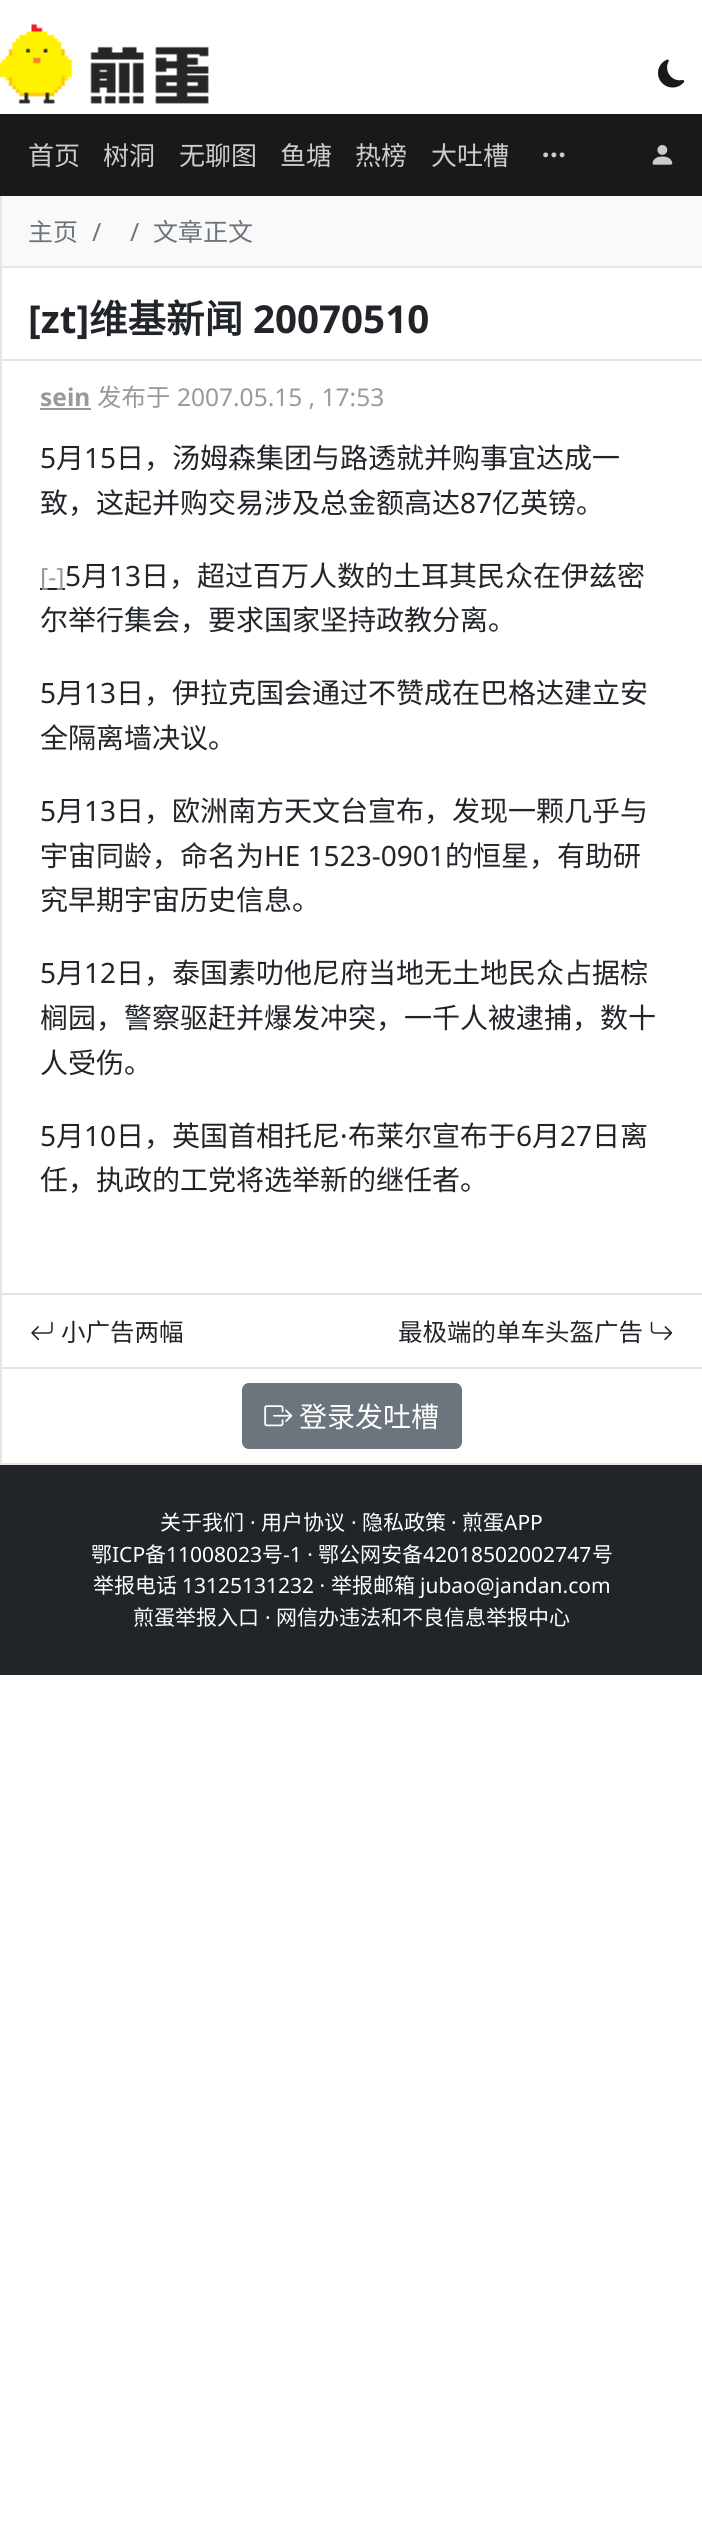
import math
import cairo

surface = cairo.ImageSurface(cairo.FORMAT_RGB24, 702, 2547)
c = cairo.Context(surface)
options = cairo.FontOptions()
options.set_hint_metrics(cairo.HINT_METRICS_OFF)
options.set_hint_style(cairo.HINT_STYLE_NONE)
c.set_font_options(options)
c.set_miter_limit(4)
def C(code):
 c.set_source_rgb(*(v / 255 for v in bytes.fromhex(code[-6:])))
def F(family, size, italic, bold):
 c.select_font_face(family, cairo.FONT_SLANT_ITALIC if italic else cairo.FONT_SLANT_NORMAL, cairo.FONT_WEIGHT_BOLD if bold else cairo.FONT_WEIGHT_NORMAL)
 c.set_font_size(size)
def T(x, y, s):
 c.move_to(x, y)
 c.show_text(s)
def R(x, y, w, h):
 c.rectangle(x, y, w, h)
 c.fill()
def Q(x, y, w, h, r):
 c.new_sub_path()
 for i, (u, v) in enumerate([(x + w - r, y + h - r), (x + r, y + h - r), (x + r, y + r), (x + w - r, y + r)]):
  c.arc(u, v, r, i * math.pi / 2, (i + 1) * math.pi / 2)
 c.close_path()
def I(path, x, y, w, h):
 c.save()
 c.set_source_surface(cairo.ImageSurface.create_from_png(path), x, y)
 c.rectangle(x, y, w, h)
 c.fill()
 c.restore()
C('ffffff')
c.paint()
I('1.png',0,24,209,80)
I('2.png',658,59,27,29)
C('191919')
R(0,114,702,82)
F('Noto Sans CJK SC',26,0,0)
C('cccccc')
T(28,165,'首页')
T(103,165,'树洞')
T(179,165,'无聊图')
T(280,165,'鱼塘')
T(355,165,'热榜')
T(431,165,'大吐槽')
I('3.png',543,152,22,6)
I('4.png',652,145,21,20)
C('e5e5e5')
R(0,196,2,1269)
C('f9f9f9')
R(2,196,700,70)
C('e5e5e5')
R(2,266,700,2)
F('Noto Sans CJK SC',25,0,0)
C('6c757d')
T(28,241,'主页')
F('Noto Sans',25,0,0)
T(92,241,'/')
T(130,241,'/')
F('Noto Sans CJK SC',25,0,0)
T(153,241,'文章正文')
C('e5e5e5')
R(2,359,700,2)
F('Noto Sans',38.5,0,1)
C('212529')
T(28,333,'[zt]')
F('Noto Sans CJK SC',38.5,0,1)
T(89,333,'维基新闻')
F('Noto Sans',38.5,0,1)
T(253,333,'20070510')
F('Noto Sans',24.5,0,1)
C('999999')
T(40,406,'sein')
R(40,408,51,2)
F('Noto Sans CJK SC',24.5,0,0)
T(97,406,'发布于')
F('Noto Sans',24.5,0,0)
T(177,406,'2007.05.15 , 17:53')
F('Noto Sans',28,0,0)
C('212529')
T(40,468,'5')
F('Noto Sans CJK SC',28,0,0)
T(56,468,'月')
F('Noto Sans',28,0,0)
T(84,468,'15')
F('Noto Sans CJK SC',28,0,0)
T(116,468,'日，汤姆森集团与路透就并购事宜达成一')
T(40,513,'致，这起并购交易涉及总金额高达')
F('Noto Sans',28,0,0)
T(460,513,'87')
F('Noto Sans CJK SC',28,0,0)
T(492,513,'亿英镑。')
R(40,588,25,2)
F('Noto Sans',25,0,0)
C('999999')
T(40,586,'[-]')
F('Noto Sans',28,0,0)
C('212529')
T(65,586,'5')
F('Noto Sans CJK SC',28,0,0)
T(81,586,'月')
F('Noto Sans',28,0,0)
T(109,586,'13')
F('Noto Sans CJK SC',28,0,0)
T(141,586,'日，超过百万人数的土耳其民众在伊兹密')
T(40,630,'尔举行集会，要求国家坚持政教分离。')
F('Noto Sans',28,0,0)
T(40,703,'5')
F('Noto Sans CJK SC',28,0,0)
T(56,703,'月')
F('Noto Sans',28,0,0)
T(84,703,'13')
F('Noto Sans CJK SC',28,0,0)
T(116,703,'日，伊拉克国会通过不赞成在巴格达建立安')
T(40,748,'全隔离墙决议。')
F('Noto Sans',28,0,0)
T(40,821,'5')
F('Noto Sans CJK SC',28,0,0)
T(56,821,'月')
F('Noto Sans',28,0,0)
T(84,821,'13')
F('Noto Sans CJK SC',28,0,0)
T(116,821,'日，欧洲南方天文台宣布，发现一颗几乎与')
T(40,866,'宇宙同龄，命名为')
F('Noto Sans',28,0,0)
T(264,866,'HE 1523-0901')
F('Noto Sans CJK SC',28,0,0)
T(445,866,'的恒星，有助研')
T(40,910,'究早期宇宙历史信息。')
F('Noto Sans',28,0,0)
T(40,983,'5')
F('Noto Sans CJK SC',28,0,0)
T(56,983,'月')
F('Noto Sans',28,0,0)
T(84,983,'12')
F('Noto Sans CJK SC',28,0,0)
T(116,983,'日，泰国素叻他尼府当地无土地民众占据棕')
T(40,1028,'榈园，警察驱赶并爆发冲突，一千人被逮捕，数十')
T(40,1073,'人受伤。')
F('Noto Sans',28,0,0)
T(40,1146,'5')
F('Noto Sans CJK SC',28,0,0)
T(56,1146,'月')
F('Noto Sans',28,0,0)
T(84,1146,'10')
F('Noto Sans CJK SC',28,0,0)
T(116,1146,'日，英国首相托尼')
F('Noto Sans',28,0,0)
T(340,1146,'·')
F('Noto Sans CJK SC',28,0,0)
T(348,1146,'布莱尔宣布于')
F('Noto Sans',28,0,0)
T(516,1146,'6')
F('Noto Sans CJK SC',28,0,0)
T(532,1146,'月')
F('Noto Sans',28,0,0)
T(560,1146,'27')
F('Noto Sans CJK SC',28,0,0)
T(592,1146,'日离')
T(40,1190,'任，执政的工党将选举新的继任者。')
C('e5e5e5')
R(2,1293,700,2)
I('5.png',31,1321,22,20)
F('Noto Sans CJK SC',24.5,0,0)
C('212529')
T(61,1341,'小广告两幅')
T(398,1341,'最极端的单车头盔广告')
I('6.png',650,1321,23,20)
C('e5e5e5')
R(2,1367,700,2)
R(2,1463,700,2)
C('6c757d')
Q(243,1384,218,64,6)
c.fill_preserve()
c.stroke()
I('7.png',264,1405,29,22)
F('Noto Sans CJK SC',28,0,0)
C('ffffff')
T(299,1427,'登录发吐槽')
C('212529')
R(0,1465,702,210)
F('Noto Sans CJK SC',21,0,0)
C('ffffff')
T(160,1530,'关于我们')
F('Noto Sans',21,0,0)
T(250,1530,'·')
F('Noto Sans CJK SC',21,0,0)
T(261,1530,'用户协议')
F('Noto Sans',21,0,0)
T(351,1530,'·')
F('Noto Sans CJK SC',21,0,0)
T(362,1530,'隐私政策')
F('Noto Sans',21,0,0)
T(451,1530,'·')
F('Noto Sans CJK SC',21,0,0)
T(462,1530,'煎蛋')
F('Noto Sans',21,0,0)
T(504,1530,'APP')
F('Noto Sans CJK SC',21,0,0)
T(91,1562,'鄂')
F('Noto Sans',21,0,0)
T(112,1562,'ICP')
F('Noto Sans CJK SC',21,0,0)
T(145,1562,'备')
F('Noto Sans',21,0,0)
T(166,1562,'11008023')
F('Noto Sans CJK SC',21,0,0)
T(262,1562,'号')
F('Noto Sans',21,0,0)
T(283,1562,'-1 ·')
F('Noto Sans CJK SC',21,0,0)
T(318,1562,'鄂公网安备')
F('Noto Sans',21,0,0)
T(423,1562,'42018502002747')
F('Noto Sans CJK SC',21,0,0)
T(592,1562,'号')
T(93,1593,'举报电话')
F('Noto Sans',21,0,0)
T(182,1593,'13125131232 ·')
F('Noto Sans CJK SC',21,0,0)
T(331,1593,'举报邮箱')
F('Noto Sans',21,0,0)
T(420,1593,'jubao@jandan.com')
F('Noto Sans CJK SC',21,0,0)
T(133,1625,'煎蛋举报入口')
F('Noto Sans',21,0,0)
T(265,1625,'·')
F('Noto Sans CJK SC',21,0,0)
T(276,1625,'网信办违法和不良信息举报中心')
surface.write_to_png('o.png')
